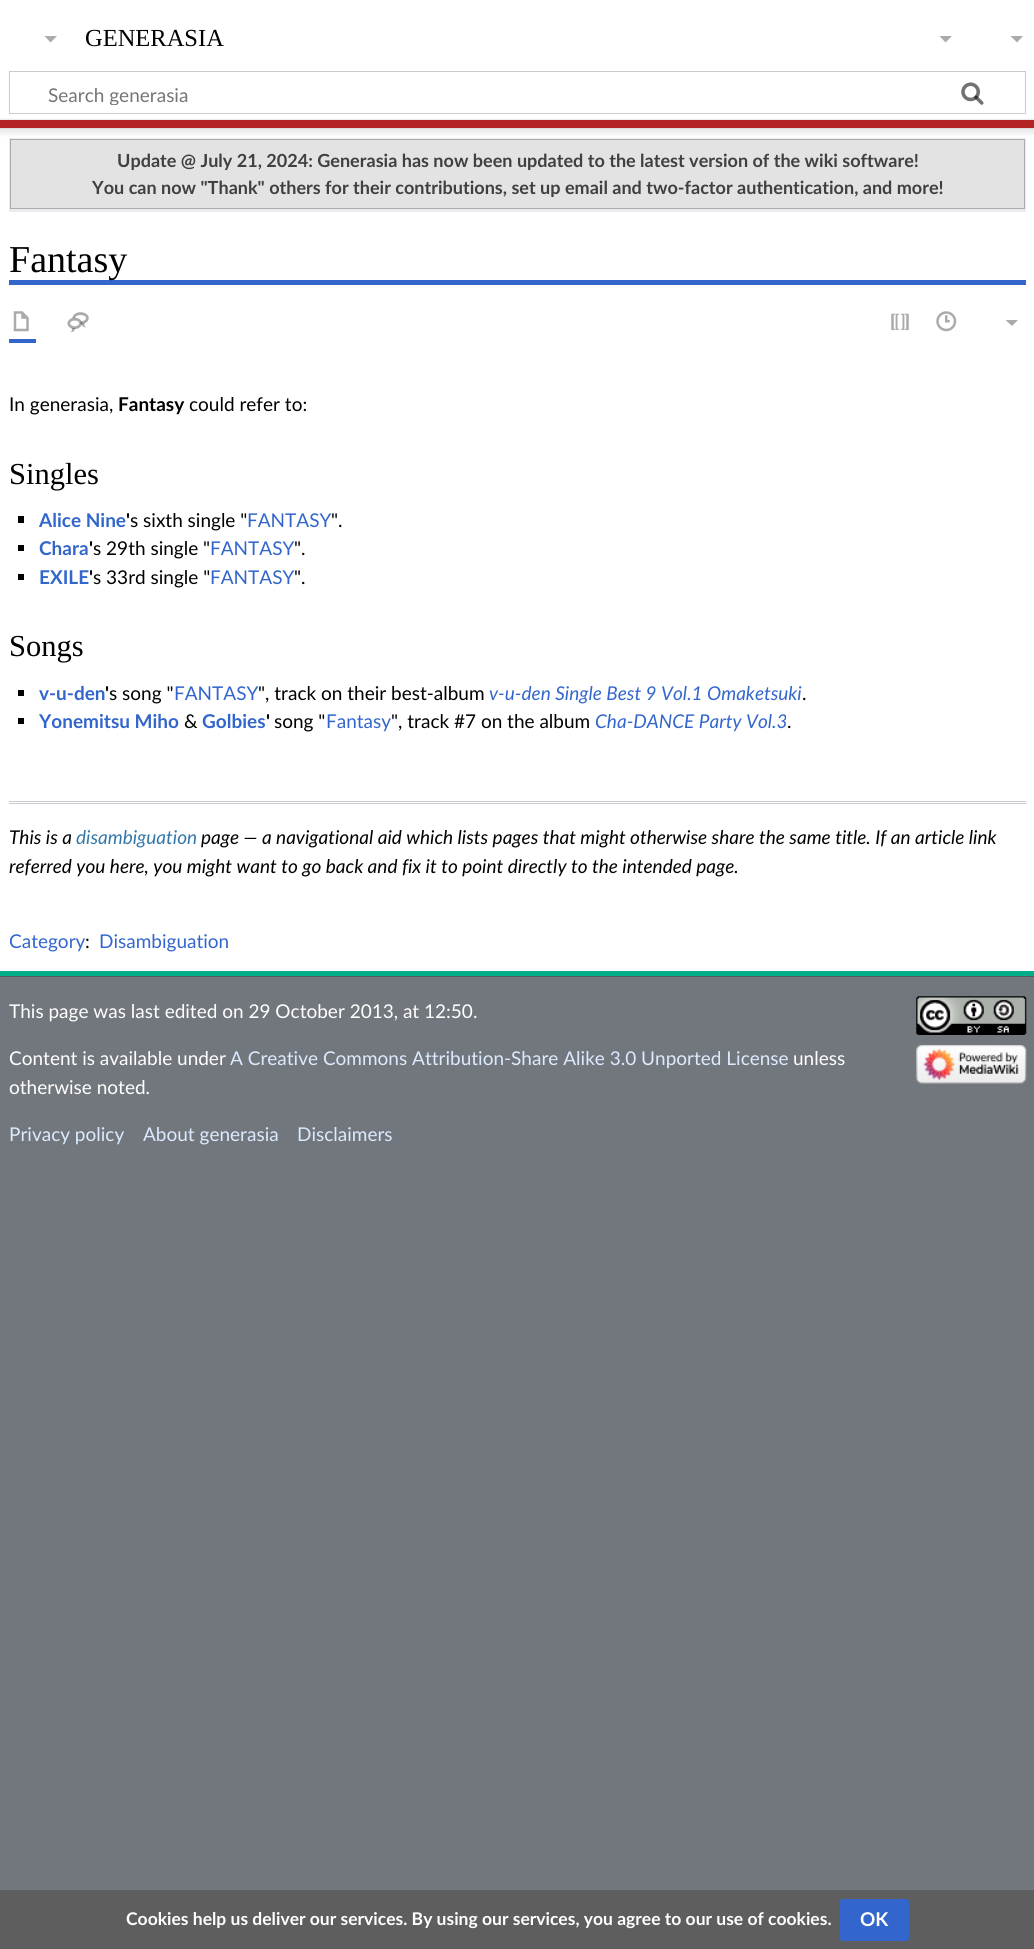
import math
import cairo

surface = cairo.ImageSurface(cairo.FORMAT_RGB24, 1034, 1949)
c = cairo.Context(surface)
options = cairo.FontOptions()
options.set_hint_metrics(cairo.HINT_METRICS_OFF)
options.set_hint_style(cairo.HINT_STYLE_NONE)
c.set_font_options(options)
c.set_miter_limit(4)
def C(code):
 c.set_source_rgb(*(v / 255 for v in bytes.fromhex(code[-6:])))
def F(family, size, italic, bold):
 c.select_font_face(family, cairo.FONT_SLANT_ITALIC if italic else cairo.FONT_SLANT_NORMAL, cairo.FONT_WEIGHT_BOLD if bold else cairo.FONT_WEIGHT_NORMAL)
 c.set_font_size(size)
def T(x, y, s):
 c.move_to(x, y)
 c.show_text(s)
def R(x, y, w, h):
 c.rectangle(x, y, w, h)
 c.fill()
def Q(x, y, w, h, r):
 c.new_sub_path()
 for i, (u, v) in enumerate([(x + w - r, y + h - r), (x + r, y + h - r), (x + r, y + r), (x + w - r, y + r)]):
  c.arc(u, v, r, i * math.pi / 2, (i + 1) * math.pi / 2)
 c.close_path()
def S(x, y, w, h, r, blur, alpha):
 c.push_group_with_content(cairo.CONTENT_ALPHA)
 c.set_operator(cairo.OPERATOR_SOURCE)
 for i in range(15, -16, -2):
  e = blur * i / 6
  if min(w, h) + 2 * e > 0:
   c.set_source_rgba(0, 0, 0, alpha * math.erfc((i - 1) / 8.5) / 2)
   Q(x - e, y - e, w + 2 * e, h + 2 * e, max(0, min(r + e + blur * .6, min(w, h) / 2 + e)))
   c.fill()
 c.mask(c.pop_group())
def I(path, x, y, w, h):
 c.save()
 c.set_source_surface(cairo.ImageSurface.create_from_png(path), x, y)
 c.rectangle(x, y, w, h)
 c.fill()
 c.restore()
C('72777d')
c.paint()
C('ffffff')
R(0,0,1034,120)
F('Liberation Serif',24.5,0,0)
C('000000')
T(85,46,'GENERASIA')
C('ababab')
c.new_path()
c.move_to(1023,36)
c.line_to(1017,42.5)
c.line_to(1010.5,36)
c.close_path()
c.fill()
c.rectangle(9.5,71.5,1016,42)
C('c8ccd1')
c.set_line_width(1)
c.stroke()
I('1.png',961,82,23,23)
c.save()
c.rectangle(48,83,887,22)
c.clip()
F('Lato',19,0,0)
C('757575')
T(48,102,'Search generasia')
c.restore()
I('2.png',961,82,23,23)
C('ffffff')
R(0,128,1034,843)
C('000000')
S(0,120,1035,8,0,1,.2)
C('eaecf0')
R(9,138,1017,1)
R(1025,138,1,73)
R(9,209,1017,3)
R(9,138,1,73)
C('e3e3e3')
c.rectangle(10.5,139.5,1014,69)
c.fill_preserve()
C('ababab')
c.stroke()
C('000000')
S(-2,121,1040,13,0,2,.07)
C('b32424')
R(0,120,1034,8)
C('00af89')
R(0,971,1034,5)
C('ababab')
c.new_path()
c.move_to(57,36)
c.line_to(50.5,42.5)
c.line_to(44.5,36)
c.close_path()
c.fill()
c.new_path()
c.move_to(952,36)
c.line_to(945.5,42.5)
c.line_to(939.5,36)
c.close_path()
c.fill()
F('Lato',18.05,0,1)
C('404040')
T(117,167,'Update @ July 21, 2024: Generasia has now been updated to the latest version of the wiki software!')
T(92,194,'You can now "Thank" others for their contributions, set up email and two-factor authentication, and more!')
C('3366cc')
R(9,280,1017,5)
F('Liberation Serif',38,0,0)
C('000000')
T(9,272,'Fantasy')
C('3366cc')
R(9,339,27,4)
I('3.png',13,311,16,21)
I('4.png',67,312,22,21)
I('5.png',891,313,18,17)
I('6.png',936,311,21,21)
C('ababab')
c.new_path()
c.move_to(1018,320)
c.line_to(1012,326)
c.line_to(1005.5,320)
c.close_path()
c.fill()
F('Lato',19,0,0)
C('000000')
T(9,411,'In generasia,')
F('Lato',19,0,1)
T(118,411,'Fantasy')
F('Lato',19,0,0)
T(189,411,'could refer to:')
F('Liberation Serif',30.5,0,0)
T(9,484,'Singles')
R(18,516,6,7)
F('Lato',19,0,1)
C('3366cc')
T(39,527,'Alice Nine')
C('000000')
T(126,527,'\'')
F('Lato',19,0,0)
T(130,527,'s sixth single "')
C('3366cc')
T(247,527,'FANTASY')
C('000000')
T(331,527,'".')
R(18,545,6,6)
F('Lato',19,0,1)
C('3366cc')
T(39,555,'Chara')
C('000000')
T(89,555,'\'')
F('Lato',19,0,0)
T(93,555,'s 29th single "')
C('3366cc')
T(210,555,'FANTASY')
C('000000')
T(294,555,'".')
R(18,574,6,6)
F('Lato',19,0,1)
C('3366cc')
T(39,584,'EXILE')
C('000000')
T(89,584,'\'')
F('Lato',19,0,0)
T(93,584,'s 33rd single "')
C('3366cc')
T(210,584,'FANTASY')
C('000000')
T(294,584,'".')
F('Liberation Serif',30.5,0,0)
T(9,656,'Songs')
R(18,690,6,6)
F('Lato',19,0,1)
C('3366cc')
T(39,700,'v-u-den')
C('000000')
T(105,700,'\'')
F('Lato',19,0,0)
T(109,700,'s song "')
C('3366cc')
T(174,700,'FANTASY')
C('000000')
T(258,700,'", track on their best-album')
F('Lato',19,1,0)
C('3366cc')
T(489,700,'v-u-den Single Best 9 Vol.1 Omaketsuki')
F('Lato',19,0,0)
C('000000')
T(802,700,'.')
R(18,718,6,6)
F('Lato',19,0,1)
C('3366cc')
T(39,728,'Yonemitsu Miho')
F('Lato',19,0,0)
C('000000')
T(184,728,'&')
F('Lato',19,0,1)
C('3366cc')
T(202,728,'Golbies')
C('000000')
T(266,728,'\'')
F('Lato',19,0,0)
T(274,728,'song "')
C('3366cc')
T(326,728,'Fantasy')
C('000000')
T(391,728,'", track #7 on the album')
F('Lato',19,1,0)
C('3366cc')
T(595,728,'Cha-DANCE Party Vol.3')
F('Lato',19,0,0)
C('000000')
T(787,728,'.')
C('c8ccd1')
R(9,801,1017,1)
R(9,803,1017,1)
F('Lato',19,1,0)
C('000000')
T(9,844,'This is a')
C('3377aa')
T(76,844,'disambiguation')
C('000000')
T(201,844,'page — a navigational aid which lists pages that might otherwise share the same title. If an article link')
T(9,873,'referred you here, you might want to go back and fix it to point directly to the intended page.')
F('Lato',19,0,0)
C('3366cc')
T(9,948,'Category')
C('000000')
T(85,948,':')
C('3366cc')
T(99,948,'Disambiguation')
C('5e5e5f')
R(0,1890,1034,59)
F('Lato',17.5,0,1)
C('ffffff')
T(126,1925,'Cookies help us deliver our services. By using our services, you agree to our use of cookies.')
C('3366cc')
Q(840.5,1899.5,68,41,2)
c.fill_preserve()
c.stroke()
F('Lato',19,0,1)
C('ffffff')
T(860,1926,'OK')
C('54595d')
R(0,976,1034,1)
F('Lato',19,0,0)
C('ffffff')
T(9,1018,'This page was last edited on 29 October 2013, at 12:50.')
T(9,1065,'Content is available under')
C('dbeaff')
T(230,1065,'A Creative Commons Attribution-Share Alike 3.0 Unported License')
C('ffffff')
T(793,1065,'unless')
T(9,1094,'otherwise noted.')
C('dbeaff')
T(9,1141,'Privacy policy')
T(143,1141,'About generasia')
T(297,1141,'Disclaimers')
I('7.png',916,996,111,39)
I('8.png',916,1045,111,39)
surface.write_to_png('o.png')
